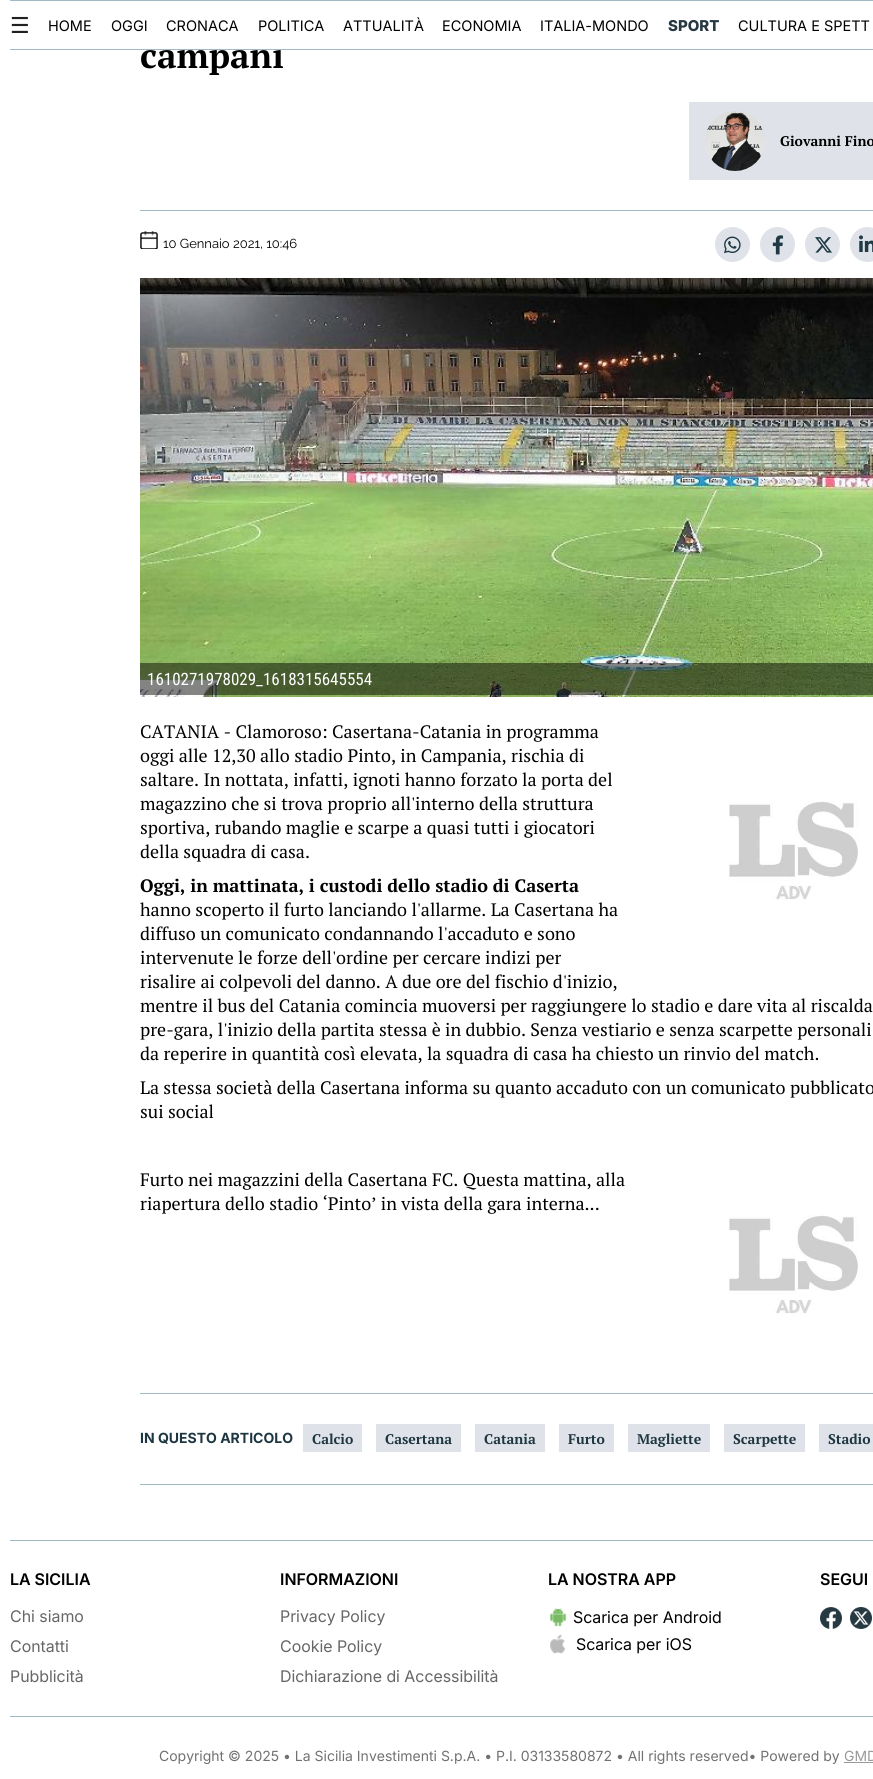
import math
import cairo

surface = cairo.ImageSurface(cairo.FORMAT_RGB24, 873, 1779)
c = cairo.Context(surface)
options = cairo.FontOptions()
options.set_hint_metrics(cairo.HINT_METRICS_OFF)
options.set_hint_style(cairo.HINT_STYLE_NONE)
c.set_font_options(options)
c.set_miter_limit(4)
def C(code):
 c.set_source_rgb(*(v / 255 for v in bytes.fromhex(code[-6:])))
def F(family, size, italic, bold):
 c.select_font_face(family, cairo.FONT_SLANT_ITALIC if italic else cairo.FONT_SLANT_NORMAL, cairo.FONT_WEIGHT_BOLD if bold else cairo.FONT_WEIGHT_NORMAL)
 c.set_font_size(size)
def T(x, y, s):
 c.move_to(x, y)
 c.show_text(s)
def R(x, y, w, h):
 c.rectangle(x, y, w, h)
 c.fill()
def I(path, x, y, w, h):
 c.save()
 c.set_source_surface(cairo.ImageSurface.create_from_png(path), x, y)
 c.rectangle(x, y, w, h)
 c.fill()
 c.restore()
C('ffffff')
c.paint()
F('PT Serif',35,0,1)
C('000000')
T(140,68,'campani')
C('ffffff')
R(274,42,7,6)
C('a0bac6')
R(10,0,863,1)
R(10,49,863,1)
F('DejaVu Sans',22,0,0)
C('212121')
T(10,33,'☰')
F('Inter',14.5,0,0)
C('000000')
T(48,31,'HOME')
T(111,31,'OGGI')
T(166,31,'CRONACA')
T(258,31,'POLITICA')
T(343,31,'ATTUALITÀ')
T(442,31,'ECONOMIA')
T(540,31,'ITALIA-MONDO')
F('Inter ExtraBold',15,0,0)
C('263942')
T(668,31,'SPORT')
F('Inter',14.5,0,0)
C('000000')
T(738,31,'CULTURA E SPETT')
C('dfe3e9')
R(689,102,184,78)
I('1.png',705,111,60,60)
F('PT Serif',14,0,1)
C('000000')
T(780,146,'Giovanni Fino')
C('a0bac6')
R(140,210,733,1)
I('2.png',140,231,18,18)
F('Raleway',13,0,0)
C('000000')
T(163,248,'10 Gennaio 2021, 10:46')
C('dfe3e9')
c.new_path()
c.arc(732.5,244.5,17,0,2 * math.pi)
c.fill_preserve()
c.set_line_width(1)
c.stroke()
I('3.png',724,236,17,18)
c.arc(777.5,244.5,17,0,2 * math.pi)
c.fill_preserve()
c.stroke()
I('4.png',772,235,12,20)
c.arc(822.5,244.5,17,0,2 * math.pi)
c.fill_preserve()
c.stroke()
I('5.png',815,237,17,16)
c.arc(867.5,244.5,17,0,2 * math.pi)
c.fill_preserve()
c.stroke()
I('6.png',859,235,14,17)
I('7.png',140,278,733,419)
c.set_source_rgba(0,0,0,0.48)
R(140,663,733,32)
F('Roboto Condensed',17,0,0)
C('ffffff')
T(147,685,'1610271978029_1618315645554')
F('PT Serif',18,0,0)
C('000000')
T(140,738,'CATANIA - Clamoroso: Casertana-Catania in programma')
T(140,762,'oggi alle 12,30 allo stadio Pinto, in Campania, rischia di')
T(140,786,'saltare. In nottata, infatti, ignoti hanno forzato la porta del')
T(140,810,'magazzino che si trova proprio all\'interno della struttura')
T(140,834,'sportiva, rubando maglie e scarpe a quasi tutti i giocatori')
T(140,858,'della squadra di casa.')
F('PT Serif',18,0,1)
T(140,892,'Oggi, in mattinata, i custodi dello stadio di Caserta')
F('PT Serif',18,0,0)
T(140,916,'hanno scoperto il furto lanciando l\'allarme. La Casertana ha')
T(140,940,'diffuso un comunicato condannando l\'accaduto e sono')
T(140,964,'intervenute le forze dell\'ordine per cercare indizi per')
T(140,988,'risalire ai colpevoli del danno. A due ore del fischio d\'inizio,')
T(140,1012,'mentre il bus del Catania comincia muoversi per raggiungere lo stadio e dare vita al riscalda')
T(140,1036,'pre-gara, l\'inizio della partita stessa è in dubbio. Senza vestiario e senza scarpette personali')
T(140,1060,'da reperire in quantità così elevata, la squadra di casa ha chiesto un rinvio del match.')
T(140,1094,'La stessa società della Casertana informa su quanto accaduto con un comunicato pubblicato')
T(140,1118,'sui social')
T(140,1186,'Furto nei magazzini della Casertana FC. Questa mattina, alla')
T(140,1210,'riapertura dello stadio ‘Pinto’ in vista della gara interna...')
I('8.png',729,1215,129,99)
I('9.png',729,801,129,99)
C('a0bac6')
R(140,1393,733,1)
R(140,1484,733,1)
F('Inter',14,0,1)
C('1d3641')
T(140,1443,'IN QUESTO ARTICOLO')
C('dfe3e9')
R(303,1424,59,28)
F('PT Serif',14,0,1)
C('1d3641')
T(312,1444,'Calcio')
C('dfe3e9')
R(376,1424,85,28)
C('1d3641')
T(385,1444,'Casertana')
C('dfe3e9')
R(475,1424,70,28)
C('1d3641')
T(484,1444,'Catania')
C('dfe3e9')
R(559,1424,55,28)
C('1d3641')
T(568,1444,'Furto')
C('dfe3e9')
R(628,1424,82,28)
C('1d3641')
T(637,1444,'Magliette')
C('dfe3e9')
R(724,1424,81,28)
C('1d3641')
T(733,1444,'Scarpette')
C('dfe3e9')
R(819,1424,54,28)
C('1d3641')
T(828,1444,'Stadio')
C('a0bac6')
R(10,1540,863,1)
R(10,1716,863,1)
F('Inter SemiBold',16,0,0)
C('000000')
T(10,1585,'LA SICILIA')
F('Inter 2',16,0,0)
C('666666')
T(10,1622,'Chi siamo')
T(10,1652,'Contatti')
T(10,1682,'Pubblicità')
F('Inter SemiBold',16,0,0)
C('000000')
T(280,1585,'INFORMAZIONI')
F('Inter 2',16,0,0)
C('666666')
T(280,1622,'Privacy Policy')
T(280,1652,'Cookie Policy')
T(280,1682,'Dichiarazione di Accessibilità')
F('Inter SemiBold',16,0,0)
C('000000')
T(548,1585,'LA NOSTRA APP')
I('10.png',549,1607,18,20)
F('Inter 2',16,0,0)
T(573,1623,'Scarica per Android')
I('11.png',550,1634,16,20)
T(576,1650,'Scarica per iOS')
F('Inter SemiBold',16,0,0)
T(820,1585,'SEGUI')
I('12.png',820,1607,22,22)
I('13.png',850,1607,22,22)
F('Inter',14,0,0)
C('717171')
T(159,1761,'Copyright © 2025 • La Sicilia Investimenti S.p.A. • P.I. 03133580872 • All rights reserved• Powered by')
C('999999')
T(844,1761,'GMD')
R(844,1762,29,1)
surface.write_to_png('o.png')
